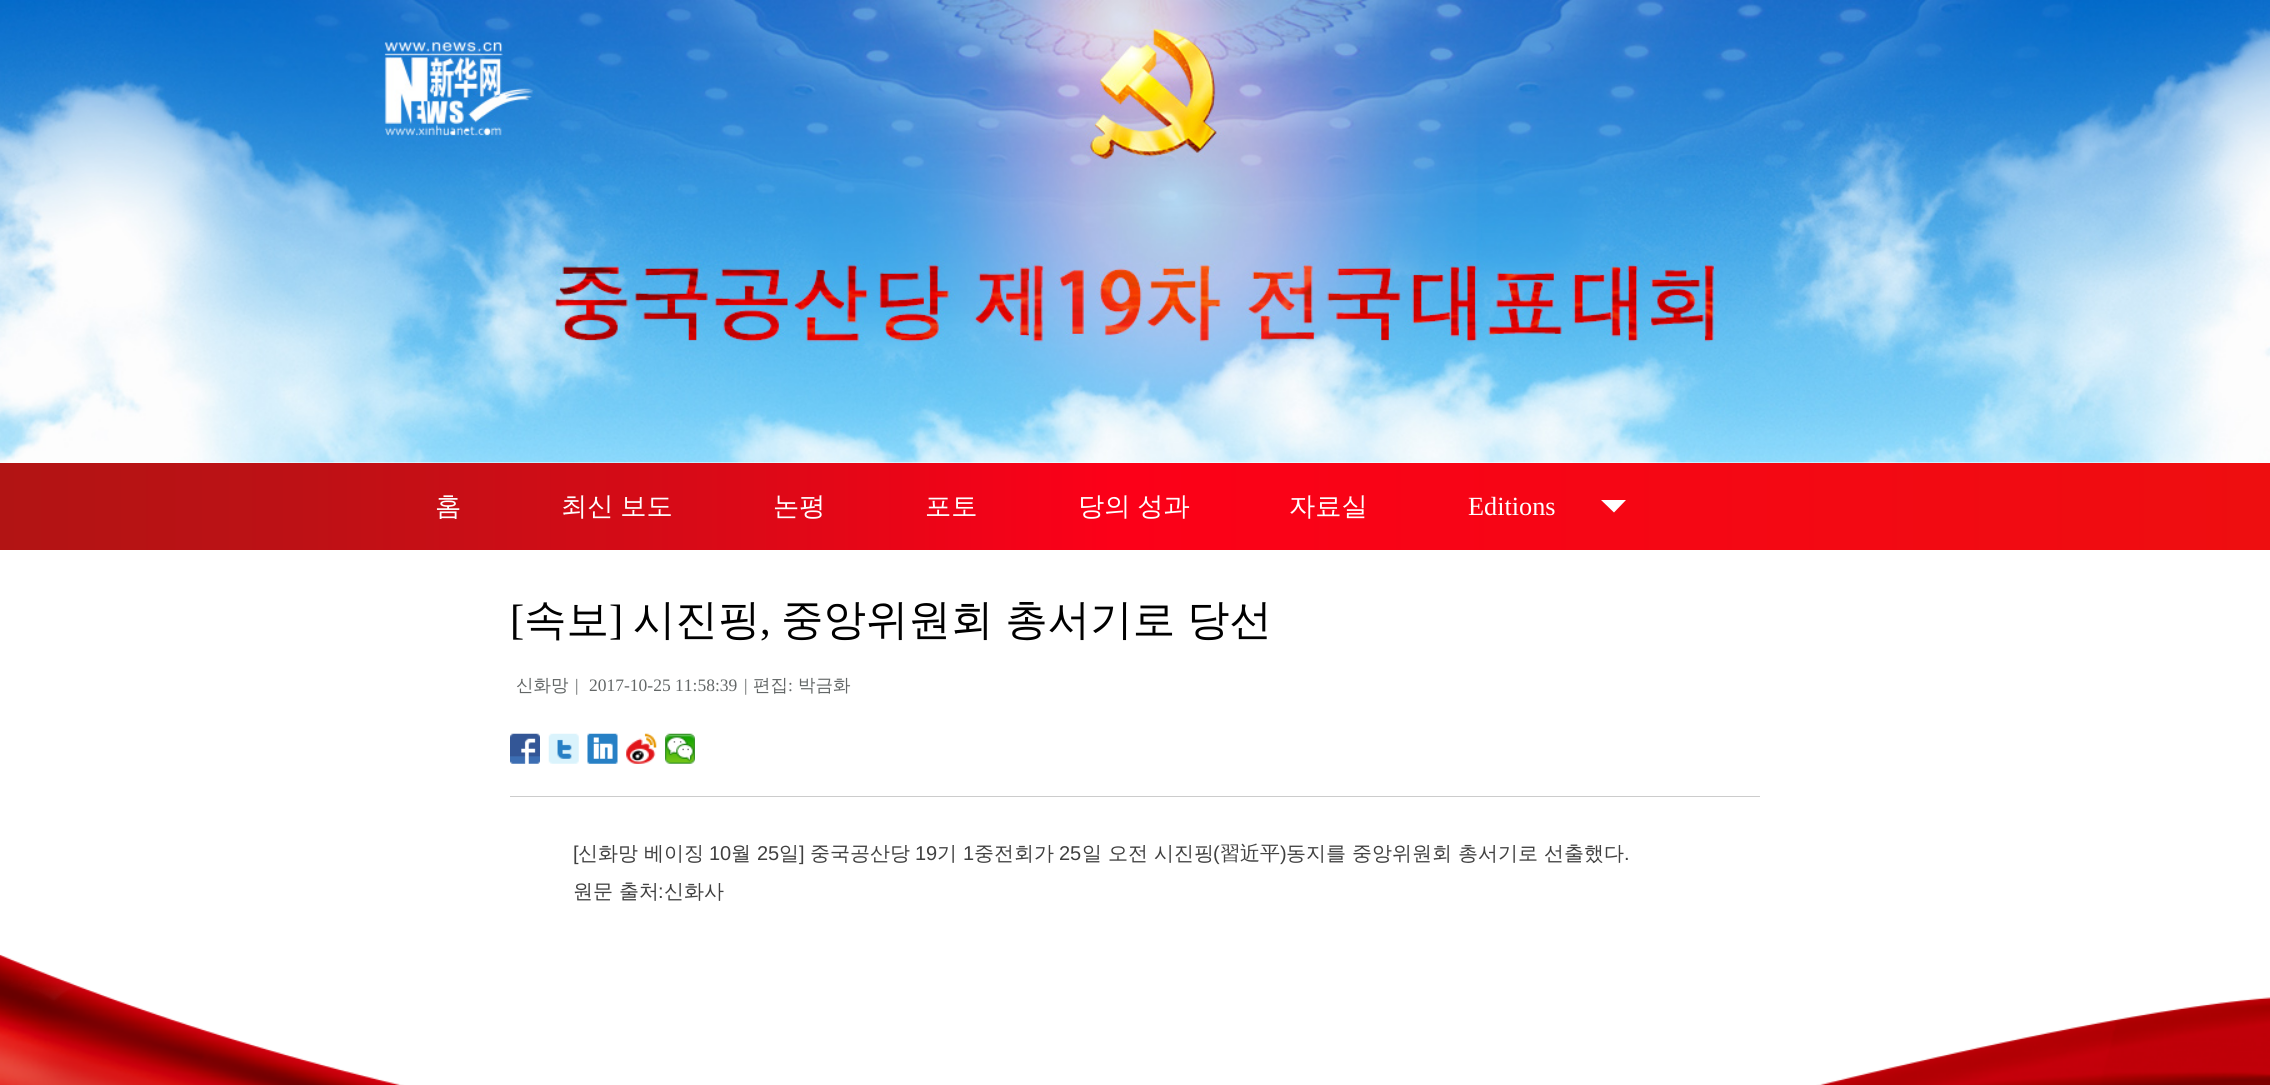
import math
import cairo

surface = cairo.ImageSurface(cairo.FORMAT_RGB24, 2270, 1085)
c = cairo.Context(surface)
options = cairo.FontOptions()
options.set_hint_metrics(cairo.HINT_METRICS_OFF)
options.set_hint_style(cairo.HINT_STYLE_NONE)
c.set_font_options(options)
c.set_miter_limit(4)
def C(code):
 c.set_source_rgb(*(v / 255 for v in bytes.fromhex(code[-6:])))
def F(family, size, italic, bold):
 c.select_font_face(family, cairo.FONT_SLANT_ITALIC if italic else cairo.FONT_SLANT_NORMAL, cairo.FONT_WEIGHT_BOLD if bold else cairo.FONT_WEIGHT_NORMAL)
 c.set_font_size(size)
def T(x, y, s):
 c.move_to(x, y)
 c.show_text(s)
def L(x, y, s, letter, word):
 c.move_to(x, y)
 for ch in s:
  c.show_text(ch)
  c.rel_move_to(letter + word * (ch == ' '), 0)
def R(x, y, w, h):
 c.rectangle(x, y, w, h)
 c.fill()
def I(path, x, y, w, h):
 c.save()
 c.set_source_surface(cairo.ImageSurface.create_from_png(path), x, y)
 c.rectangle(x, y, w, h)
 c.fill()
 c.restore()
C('ffffff')
c.paint()
I('1.png',0,0,2270,463)
gradient = cairo.LinearGradient(0,506,2270,506)
gradient.add_color_stop_rgba(0,0.698,0.078,0.078,1)
gradient.add_color_stop_rgba(.13,0.741,0.067,0.082,1)
gradient.add_color_stop_rgba(.33,0.863,0.035,0.09,1)
gradient.add_color_stop_rgba(.49,0.988,0,0.094,1)
gradient.add_color_stop_rgba(1,0.933,0.055,0.063,1)
c.set_source(gradient)
R(0,463,2270,87)
F('WenQuanYi Zen Hei Medium',26.25,0,0)
C('ffffff')
T(435,515,'홈')
L(561,515,'최신 보도',0,-1)
T(773,515,'논평')
T(925,515,'포토')
L(1078,515,'당의 성과',0,-1)
T(1289,515,'자료실')
F('Liberation Serif',26.25,0,0)
T(1468,515,'Editions')
c.new_path()
c.move_to(1601,500)
c.line_to(1626,500)
c.line_to(1614,512.5)
c.close_path()
c.fill()
F('Liberation Serif',42.5,0,0)
C('000000')
T(510,634,'[')
F('WenQuanYi Zen Hei Medium',42.5,0,0)
T(524,634,'속보')
F('Liberation Serif',42.5,0,0)
T(609,634,']')
F('WenQuanYi Zen Hei Medium',42.5,0,0)
T(633,634,'시진핑')
F('Liberation Serif',42.5,0,0)
T(760,634,',')
F('WenQuanYi Zen Hei Medium',42.5,0,0)
L(781,634,'중앙위원회 총서기로 당선',0,-1)
F('WenQuanYi Zen Hei Medium',17.5,0,0)
C('636767')
T(516,691,'신화망')
F('Liberation Serif',17.5,0,0)
T(575,691,'|')
T(589,691,'2017-10-25 11:58:39')
T(744,691,'|')
F('WenQuanYi Zen Hei Medium',17.5,0,0)
T(753,691,'편집')
F('Liberation Serif',17.5,0,0)
T(788,691,':')
F('WenQuanYi Zen Hei Medium',17.5,0,0)
T(798,691,'박금화')
I('2.png',510,733,30,31)
I('3.png',548,733,31,31)
I('4.png',587,733,31,31)
I('5.png',626,733,31,31)
I('6.png',665,733,30,31)
C('cccccc')
R(510,796,1250,1)
F('Liberation Sans',20,0,0)
C('404040')
T(573,860,'[')
F('WenQuanYi Zen Hei Medium',20,0,0)
T(578,860,'신화망 베이징')
F('Liberation Sans',20,0,0)
T(709,860,'10')
F('WenQuanYi Zen Hei Medium',20,0,0)
T(731,860,'월')
F('Liberation Sans',20,0,0)
T(757,860,'25')
F('WenQuanYi Zen Hei Medium',20,0,0)
T(779,860,'일')
F('Liberation Sans',20,0,0)
T(799,860,']')
F('WenQuanYi Zen Hei Medium',20,0,0)
T(810,860,'중국공산당')
F('Liberation Sans',20,0,0)
T(915,860,'19')
F('WenQuanYi Zen Hei Medium',20,0,0)
T(937,860,'기')
F('Liberation Sans',20,0,0)
T(963,860,'1')
F('WenQuanYi Zen Hei Medium',20,0,0)
T(974,860,'중전회가')
F('Liberation Sans',20,0,0)
T(1059,860,'25')
F('WenQuanYi Zen Hei Medium',20,0,0)
T(1082,860,'일 오전 시진핑')
F('Liberation Sans',20,0,0)
T(1213,860,'(')
F('WenQuanYi Zen Hei Medium',20,0,0)
T(1220,860,'習近平')
F('Liberation Sans',20,0,0)
T(1280,860,')')
F('WenQuanYi Zen Hei Medium',20,0,0)
T(1286,860,'동지를 중앙위원회 총서기로 선출했다')
F('Liberation Sans',20,0,0)
T(1624,860,'.')
F('WenQuanYi Zen Hei Medium',20,0,0)
T(573,898,'원문 출처')
F('Liberation Sans',20,0,0)
T(658,898,':')
F('WenQuanYi Zen Hei Medium',20,0,0)
T(664,898,'신화사')
I('7.png',0,954,2270,131)
surface.write_to_png('o.png')
